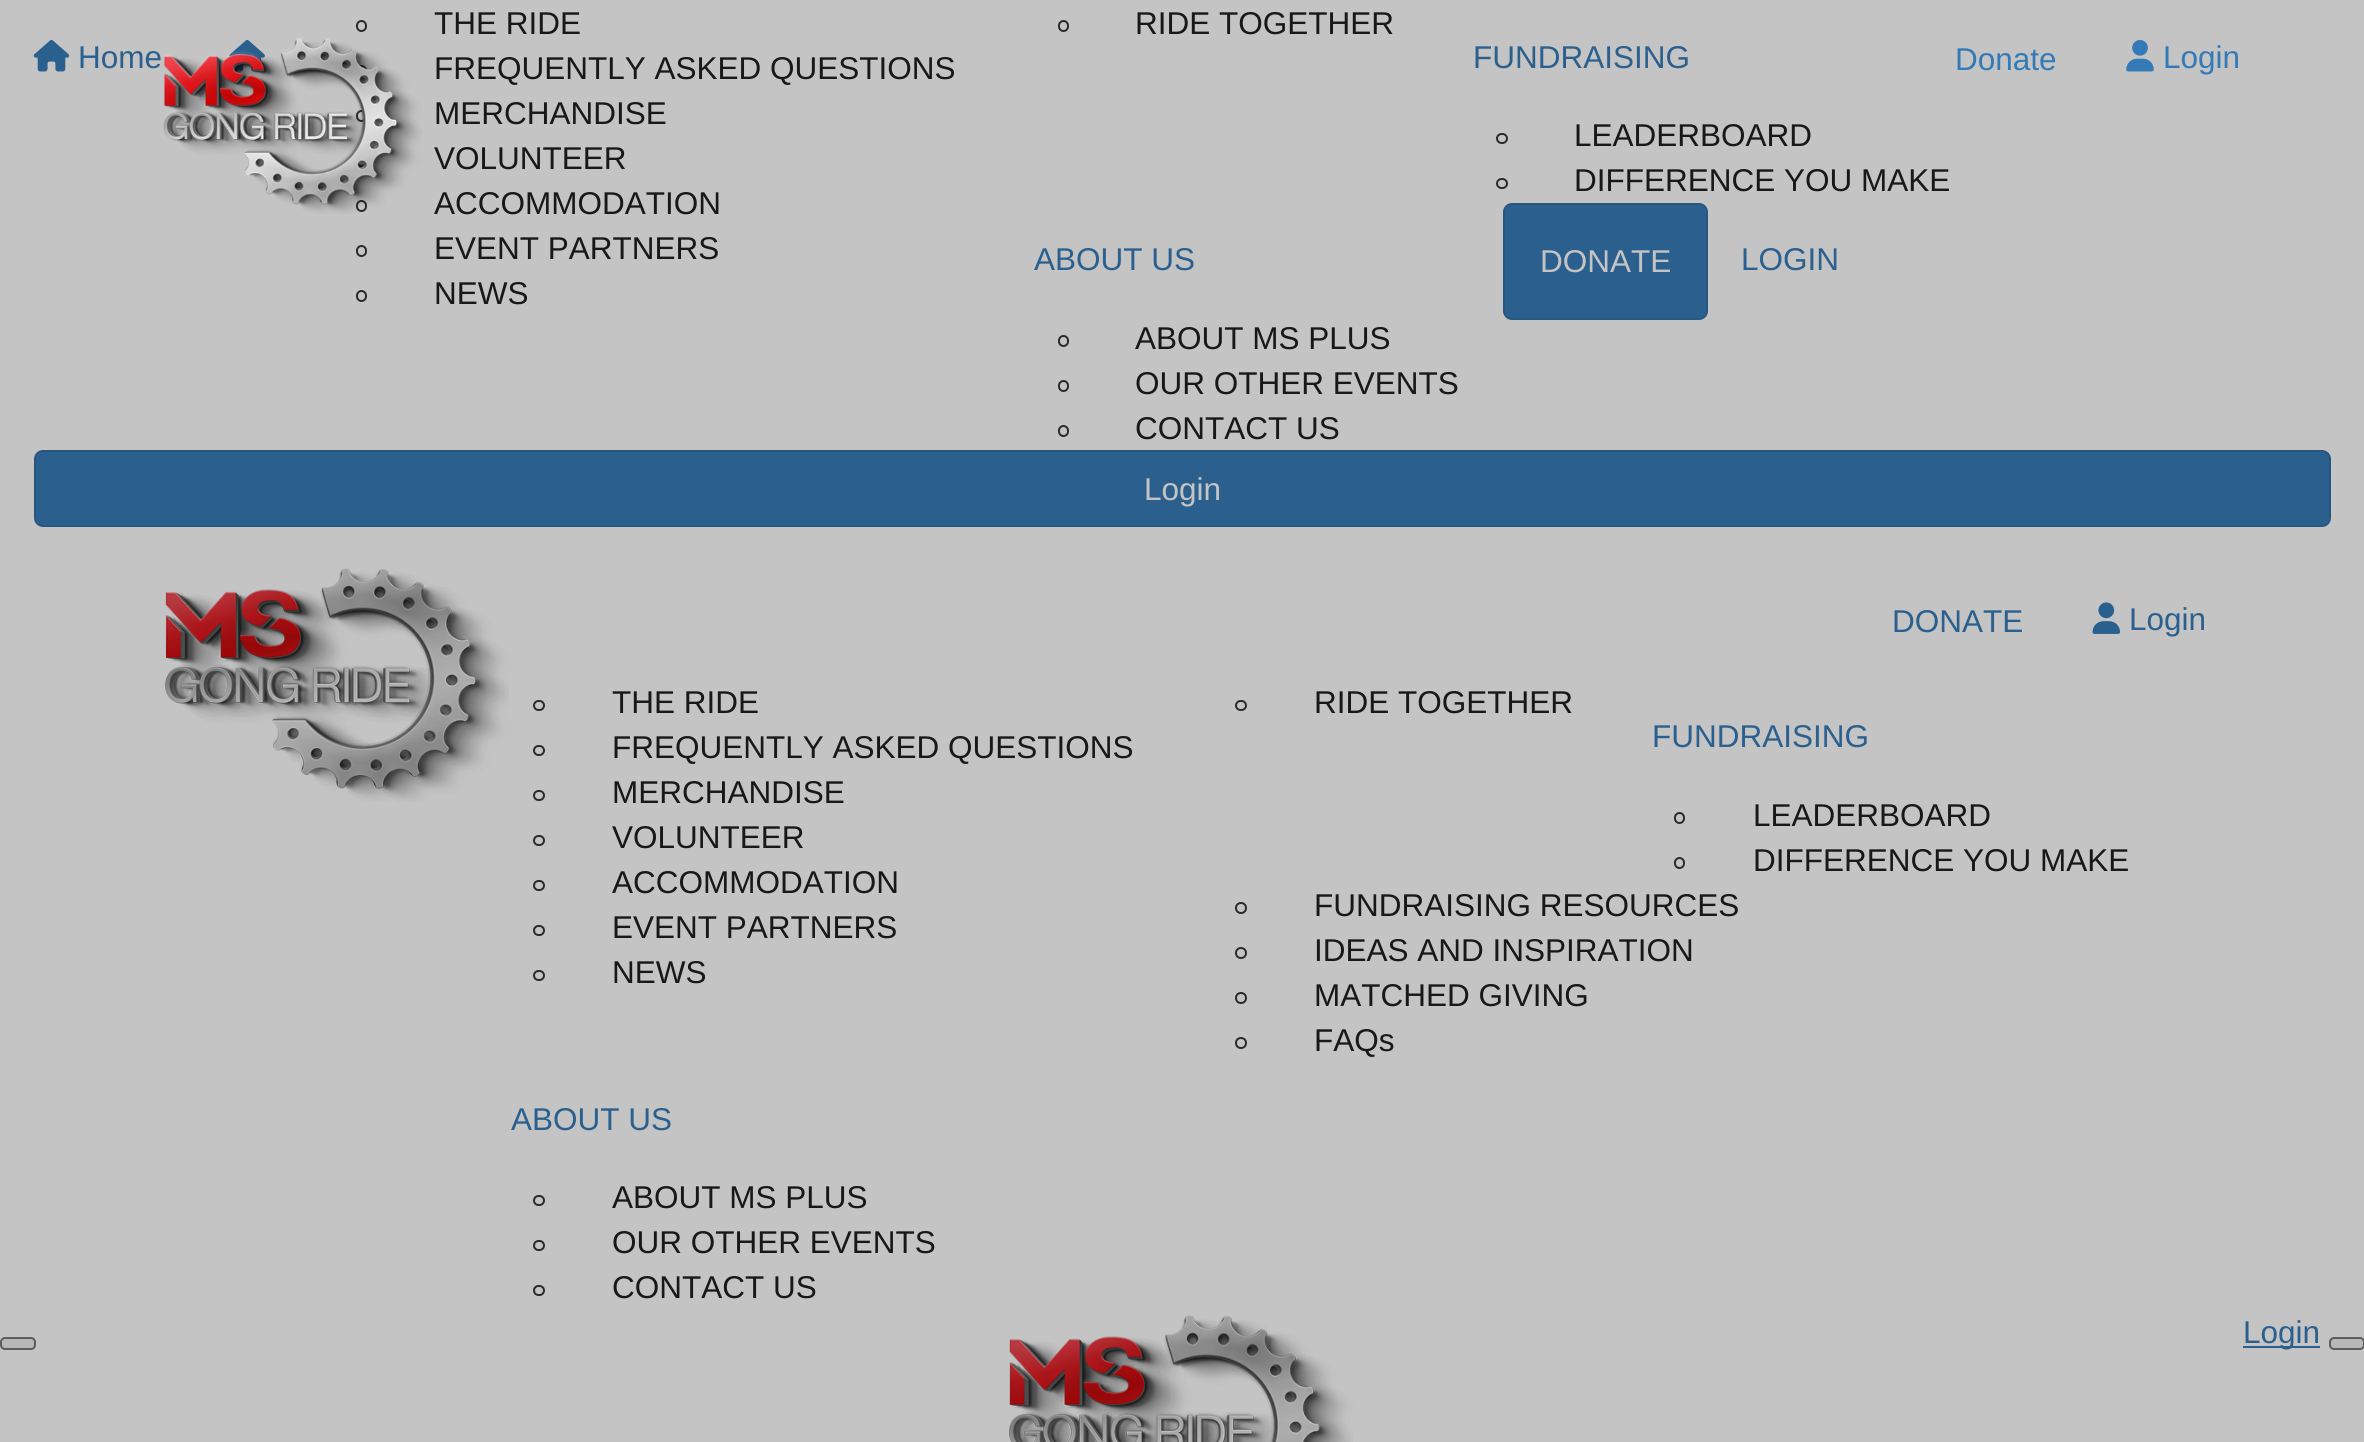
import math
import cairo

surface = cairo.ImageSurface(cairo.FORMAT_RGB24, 2364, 1442)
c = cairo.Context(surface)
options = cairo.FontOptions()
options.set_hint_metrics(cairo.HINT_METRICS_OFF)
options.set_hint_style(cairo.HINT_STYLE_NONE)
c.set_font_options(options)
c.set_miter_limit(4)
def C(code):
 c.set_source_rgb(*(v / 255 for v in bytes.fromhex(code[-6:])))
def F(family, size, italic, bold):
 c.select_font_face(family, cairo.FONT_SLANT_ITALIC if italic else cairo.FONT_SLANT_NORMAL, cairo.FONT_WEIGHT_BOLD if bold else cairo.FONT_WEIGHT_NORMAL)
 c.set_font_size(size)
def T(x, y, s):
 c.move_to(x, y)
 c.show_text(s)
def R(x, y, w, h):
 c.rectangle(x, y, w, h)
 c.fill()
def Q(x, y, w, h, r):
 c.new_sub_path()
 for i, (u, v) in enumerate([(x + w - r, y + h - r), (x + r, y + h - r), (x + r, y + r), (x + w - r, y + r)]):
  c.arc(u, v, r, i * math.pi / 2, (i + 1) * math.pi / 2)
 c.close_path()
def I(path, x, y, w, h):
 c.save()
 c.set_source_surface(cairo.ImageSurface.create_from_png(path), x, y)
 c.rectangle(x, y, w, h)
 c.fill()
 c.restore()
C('c4c4c4')
c.paint()
Q(357,21,9,10,4.5)
C('2b2b2b')
c.stroke()
F('Liberation Sans',31.5,0,0)
C('181818')
T(434,34,'THE RIDE')
Q(357,66,9,10,4.5)
C('2b2b2b')
c.stroke()
C('181818')
T(434,79,'FREQUENTLY ASKED QUESTIONS')
Q(357,111,9,10,4.5)
C('2b2b2b')
c.stroke()
C('181818')
T(434,124,'MERCHANDISE')
Q(357,156,9,10,4.5)
C('2b2b2b')
c.stroke()
C('181818')
T(434,169,'VOLUNTEER')
Q(357,201,9,10,4.5)
C('2b2b2b')
c.stroke()
C('181818')
T(434,214,'ACCOMMODATION')
Q(357,246,9,10,4.5)
C('2b2b2b')
c.stroke()
C('181818')
T(434,259,'EVENT PARTNERS')
Q(357,291,9,10,4.5)
C('2b2b2b')
c.stroke()
C('181818')
T(434,304,'NEWS')
Q(1059,21,9,10,4.5)
C('2b2b2b')
c.stroke()
C('181818')
T(1135,34,'RIDE TOGETHER')
I('1.png',33,39,37,33)
C('2b608e')
T(78,68,'Home')
I('2.png',229,39,36,33)
T(1473,68,'FUNDRAISING')
Q(1497,134,10,9,4.5)
C('2b2b2b')
c.stroke()
C('181818')
T(1574,146,'LEADERBOARD')
Q(1497,179,10,9,4.5)
C('2b2b2b')
c.stroke()
C('181818')
T(1574,191,'DIFFERENCE YOU MAKE')
C('2b608e')
T(1034,270,'ABOUT US')
Q(1059,336,9,10,4.5)
C('2b2b2b')
c.stroke()
C('181818')
T(1135,349,'ABOUT MS PLUS')
Q(1059,381,9,10,4.5)
C('2b2b2b')
c.stroke()
C('181818')
T(1135,394,'OUR OTHER EVENTS')
Q(1059,426,9,10,4.5)
C('2b2b2b')
c.stroke()
C('181818')
T(1135,439,'CONTACT US')
C('2b608e')
Q(1504,204,203,115,8)
c.fill_preserve()
C('27567f')
c.stroke()
C('c4c4c4')
T(1540,272,'DONATE')
C('2b608e')
T(1741,270,'LOGIN')
I('3.png',163,37,259,177)
C('337ab7')
T(1955,70,'Donate')
I('4.png',2126,40,28,32)
T(2163,68,'Login')
I('5.png',165,568,344,234)
C('2b608e')
T(1892,632,'DONATE')
I('6.png',2092,602,28,32)
T(2129,630,'Login')
Q(534,701,10,9,4.5)
C('2b2b2b')
c.stroke()
C('181818')
T(612,713,'THE RIDE')
Q(534,746,10,9,4.5)
C('2b2b2b')
c.stroke()
C('181818')
T(612,758,'FREQUENTLY ASKED QUESTIONS')
Q(534,791,10,9,4.5)
C('2b2b2b')
c.stroke()
C('181818')
T(612,803,'MERCHANDISE')
Q(534,836,10,9,4.5)
C('2b2b2b')
c.stroke()
C('181818')
T(612,848,'VOLUNTEER')
Q(534,881,10,9,4.5)
C('2b2b2b')
c.stroke()
C('181818')
T(612,893,'ACCOMMODATION')
Q(534,926,10,9,4.5)
C('2b2b2b')
c.stroke()
C('181818')
T(612,938,'EVENT PARTNERS')
Q(534,971,10,9,4.5)
C('2b2b2b')
c.stroke()
C('181818')
T(612,983,'NEWS')
Q(1236,701,10,9,4.5)
C('2b2b2b')
c.stroke()
C('181818')
T(1314,713,'RIDE TOGETHER')
C('2b608e')
T(1652,747,'FUNDRAISING')
Q(1675,813,9,10,4.5)
C('2b2b2b')
c.stroke()
C('181818')
T(1753,826,'LEADERBOARD')
Q(1675,858,9,10,4.5)
C('2b2b2b')
c.stroke()
C('181818')
T(1753,871,'DIFFERENCE YOU MAKE')
c.new_path()
c.arc(1241,908,5,0,2 * math.pi)
C('2b2b2b')
c.stroke()
C('181818')
T(1314,916,'FUNDRAISING RESOURCES')
c.new_path()
c.arc(1241,953,5,0,2 * math.pi)
C('2b2b2b')
c.stroke()
C('181818')
T(1314,961,'IDEAS AND INSPIRATION')
c.new_path()
c.arc(1241,998,5,0,2 * math.pi)
C('2b2b2b')
c.stroke()
C('181818')
T(1314,1006,'MATCHED GIVING')
c.new_path()
c.arc(1241,1043,5,0,2 * math.pi)
C('2b2b2b')
c.stroke()
C('181818')
T(1314,1051,'FAQs')
C('2b608e')
T(511,1130,'ABOUT US')
Q(534,1196,10,9,4.5)
C('2b2b2b')
c.stroke()
C('181818')
T(612,1208,'ABOUT MS PLUS')
Q(534,1241,10,9,4.5)
C('2b2b2b')
c.stroke()
C('181818')
T(612,1253,'OUR OTHER EVENTS')
Q(534,1286,10,9,4.5)
C('2b2b2b')
c.stroke()
C('181818')
T(612,1298,'CONTACT US')
C('b8b8b8')
Q(1,1338,34,11,4)
c.fill_preserve()
C('5d5d5d')
c.stroke()
I('7.png',1009,1315,344,127)
C('2b608e')
R(2243,1346,77,2)
T(2243,1343,'Login')
C('b8b8b8')
Q(2330,1338,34,11,4)
c.fill_preserve()
C('5d5d5d')
c.stroke()
C('2b608e')
Q(35,451,2295,75,8)
c.fill_preserve()
C('27567f')
c.stroke()
C('c4c4c4')
T(1144,500,'Login')
surface.write_to_png('o.png')
